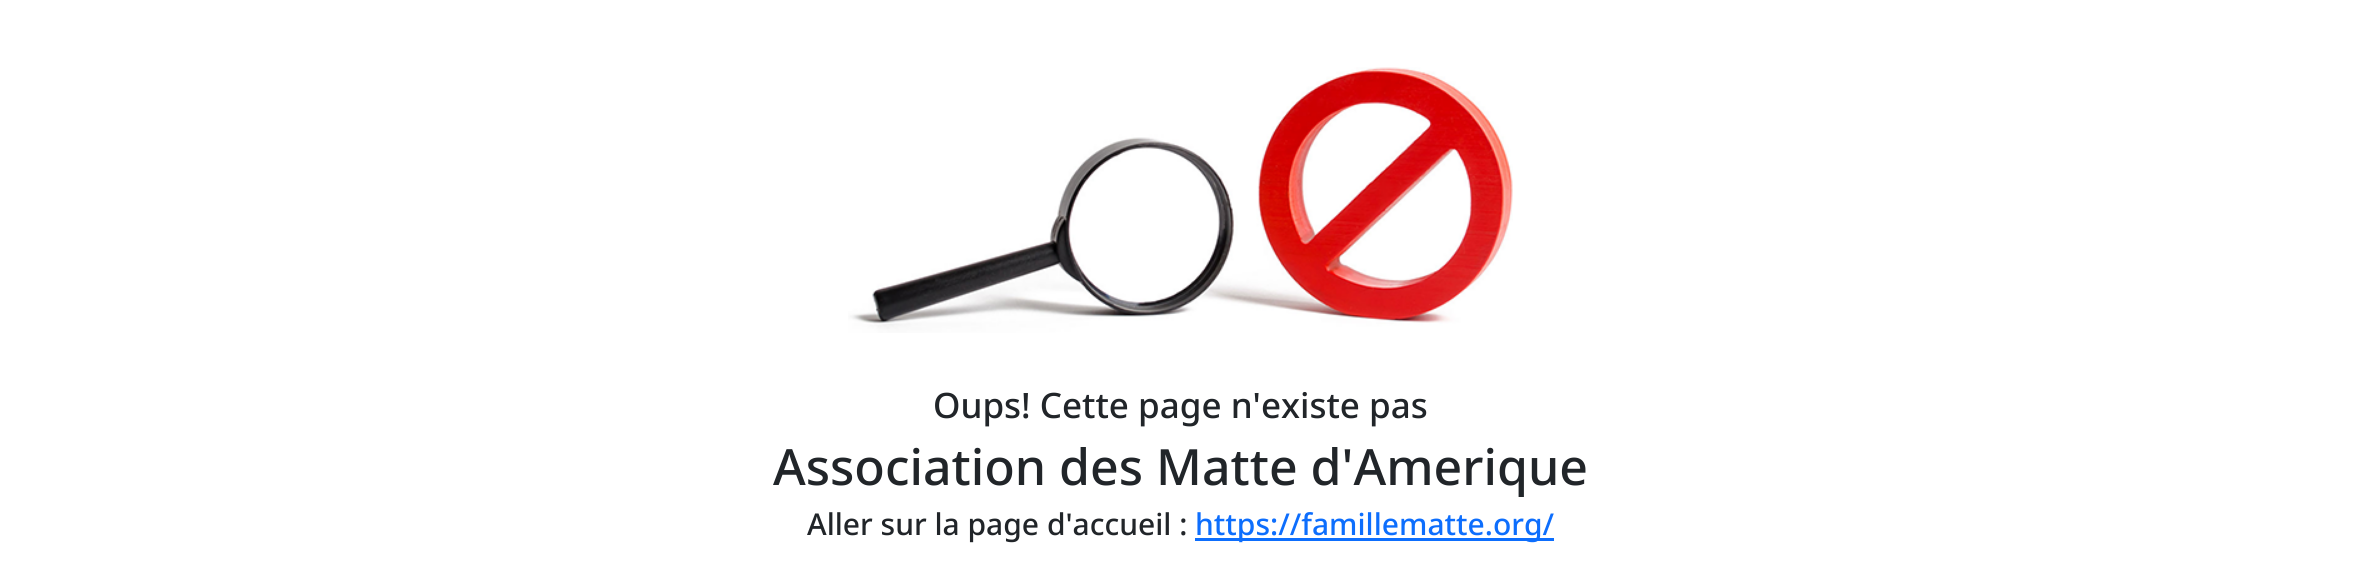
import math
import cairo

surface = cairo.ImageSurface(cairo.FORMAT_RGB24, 2361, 576)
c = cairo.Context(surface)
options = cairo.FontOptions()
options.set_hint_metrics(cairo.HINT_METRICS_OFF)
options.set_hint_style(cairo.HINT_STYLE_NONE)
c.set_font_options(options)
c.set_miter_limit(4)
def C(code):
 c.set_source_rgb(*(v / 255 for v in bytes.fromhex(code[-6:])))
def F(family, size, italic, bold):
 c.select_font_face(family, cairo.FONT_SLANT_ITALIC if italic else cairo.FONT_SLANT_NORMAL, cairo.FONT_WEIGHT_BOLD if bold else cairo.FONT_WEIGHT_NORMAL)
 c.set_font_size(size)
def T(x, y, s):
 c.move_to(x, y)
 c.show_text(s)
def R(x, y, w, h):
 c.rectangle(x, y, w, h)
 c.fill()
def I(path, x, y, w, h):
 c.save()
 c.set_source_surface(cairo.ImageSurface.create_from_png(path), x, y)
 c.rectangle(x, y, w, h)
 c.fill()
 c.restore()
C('ffffff')
c.paint()
I('1.png',848,67,665,266)
F('Noto Sans Medium',35,0,0)
C('212529')
T(933,418,'Oups! Cette page n\'existe pas')
F('Noto Sans Medium',50,0,0)
T(773,485,'Association des Matte d\'Amerique')
F('Noto Sans Medium',30,0,0)
T(807,535,'Aller sur la page d\'accueil :')
C('0d6efd')
R(1195,538,359,3)
T(1195,535,'https://famillematte.org/')
surface.write_to_png('o.png')
